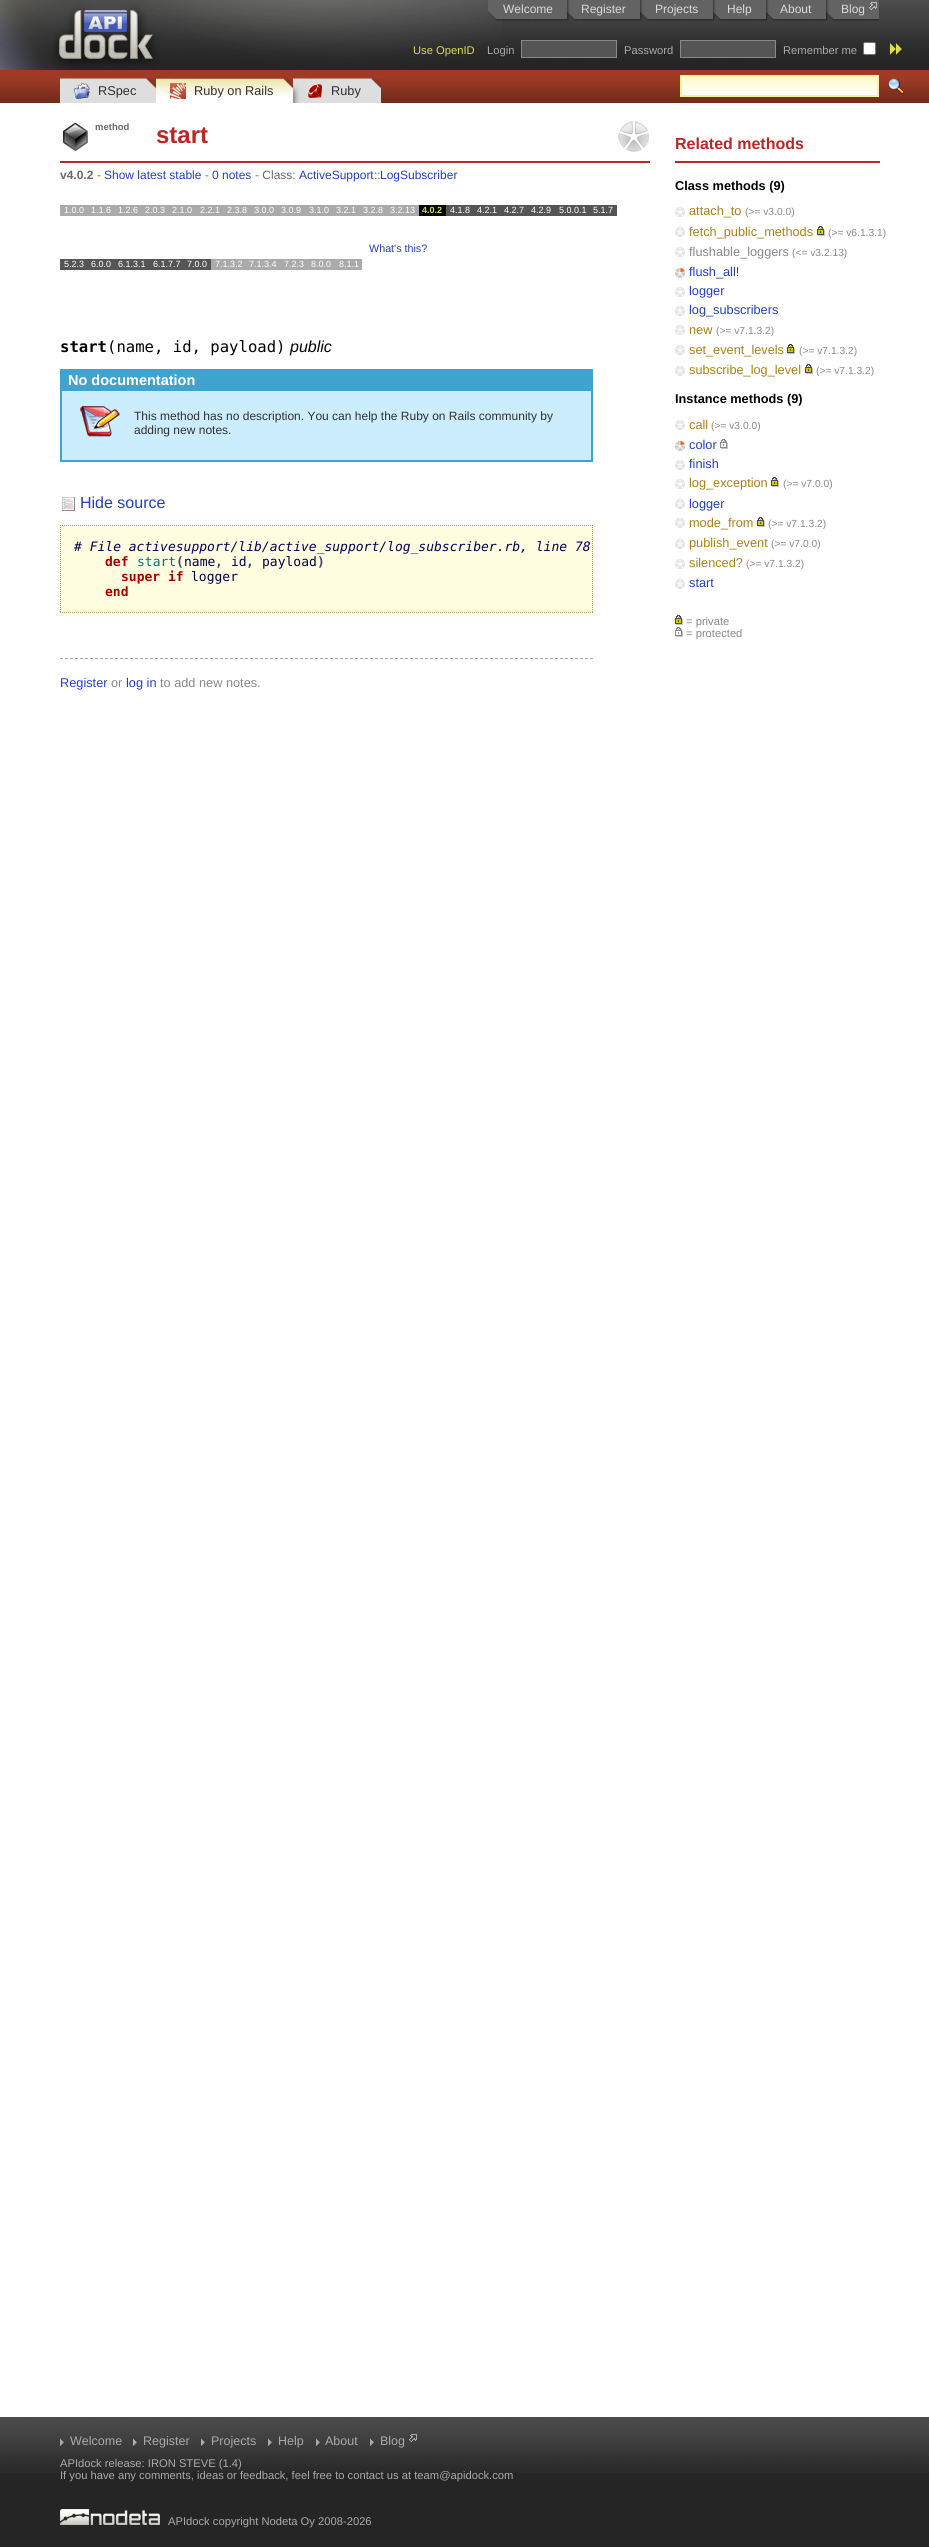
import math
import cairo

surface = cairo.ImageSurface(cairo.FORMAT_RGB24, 929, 2547)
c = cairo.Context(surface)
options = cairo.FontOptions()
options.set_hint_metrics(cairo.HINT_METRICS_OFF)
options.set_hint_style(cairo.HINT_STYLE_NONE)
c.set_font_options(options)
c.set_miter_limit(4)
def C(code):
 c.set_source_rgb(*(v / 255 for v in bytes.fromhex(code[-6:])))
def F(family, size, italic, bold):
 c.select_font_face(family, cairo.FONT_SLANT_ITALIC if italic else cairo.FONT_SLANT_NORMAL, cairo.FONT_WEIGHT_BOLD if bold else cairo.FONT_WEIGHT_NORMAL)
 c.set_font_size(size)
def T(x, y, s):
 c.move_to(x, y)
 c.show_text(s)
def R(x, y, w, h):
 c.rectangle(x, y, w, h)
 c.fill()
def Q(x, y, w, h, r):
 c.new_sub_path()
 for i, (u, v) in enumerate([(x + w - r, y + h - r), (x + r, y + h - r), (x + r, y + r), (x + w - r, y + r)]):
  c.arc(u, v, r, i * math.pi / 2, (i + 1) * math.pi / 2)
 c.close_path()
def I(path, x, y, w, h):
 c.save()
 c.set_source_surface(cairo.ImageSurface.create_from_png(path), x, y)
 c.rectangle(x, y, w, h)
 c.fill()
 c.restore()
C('ffffff')
c.paint()
I('1.png',0,0,929,70)
I('2.png',0,0,503,70)
I('3.png',488,0,79,22)
F('Liberation Sans',12,0,0)
C('dadada')
T(503,13,'Welcome')
I('4.png',567,0,73,21)
T(581,13,'Register')
I('5.png',640,0,73,21)
T(655,13,'Projects')
I('6.png',713,0,53,21)
T(727,13,'Help')
I('7.png',766,0,60,21)
T(780,13,'About')
I('8.png',826,0,53,21)
I('9.png',869,2,8,8)
T(841,13,'Blog')
F('Liberation Sans',11.2,0,0)
C('dbdb51')
T(413,54,'Use OpenID')
C('aaaaaa')
T(487,54,'Login')
C('555555')
c.rectangle(521.5,40.5,95,17)
c.fill_preserve()
C('888888')
c.set_line_width(1)
c.stroke()
C('aaaaaa')
T(624,54,'Password')
C('555555')
c.rectangle(680.5,40.5,95,17)
c.fill_preserve()
C('888888')
c.stroke()
C('aaaaaa')
T(783,54,'Remember me')
C('ffffff')
Q(863.5,42.5,12,12,1.5)
c.fill_preserve()
C('767676')
c.stroke()
I('10.png',889,43,13,12)
C('9f3b25')
R(0,70,929,33)
I('11.png',0,79,929,24)
I('12.png',60,77,96,26)
C('b98c82')
R(60,78,14,1)
I('13.png',74,83,16,16)
F('Liberation Sans',12.75,0,0)
C('303030')
T(98,95,'RSpec')
I('14.png',156,77,137,26)
C('ae6b49')
R(156,78,14,1)
I('15.png',170,83,16,16)
C('303030')
T(194,95,'Ruby on Rails')
I('16.png',293,77,88,26)
I('17.png',293,78,14,25)
I('18.png',308,84,14,14)
T(331,95,'Ruby')
C('ffffff')
R(682,94,195,1)
I('19.png',682,77,195,17)
c.rectangle(681,76,197,20)
C('faf39d')
c.set_line_width(2)
c.stroke()
I('20.png',888,78,16,16)
C('ba2727')
R(60,161,590,2)
I('21.png',63,123,25,28)
F('Liberation Sans',9.5,0,1)
C('696969')
T(95,130,'method')
F('Liberation Sans',24,0,1)
C('ba2727')
T(156,143,'start')
I('22.png',618,121,31,31)
F('Liberation Sans',12,0,1)
C('696969')
T(60,179,'v4.0.2')
F('Liberation Sans',12,0,0)
T(97,179,'-')
C('233fbf')
T(104,179,'Show latest stable')
C('696969')
T(205,179,'-')
C('233fbf')
T(212,179,'0 notes')
C('696969')
T(255,179,'- Class:')
C('233fbf')
T(299,179,'ActiveSupport')
C('696969')
T(374,179,'::')
C('233fbf')
T(380,179,'LogSubscriber')
C('aaaaaa')
R(60,205,359,11)
F('Liberation Sans',9,0,0)
C('ffffff')
T(64,213,'1.0.0')
T(91,213,'1.1.6')
T(118,213,'1.2.6')
T(145,213,'2.0.3')
T(172,213,'2.1.0')
T(200,213,'2.2.1')
T(227,213,'2.3.8')
T(254,213,'3.0.0')
T(281,213,'3.0.9')
T(309,213,'3.1.0')
T(336,213,'3.2.1')
T(363,213,'3.2.8')
T(390,213,'3.2.13')
C('000000')
R(419,205,27,11)
F('Liberation Sans',9,0,1)
C('dbdb51')
T(422,213,'4.0.2')
C('555555')
R(446,205,171,11)
F('Liberation Sans',9,0,0)
C('ffffff')
T(450,213,'4.1.8')
T(477,213,'4.2.1')
T(504,213,'4.2.7')
T(531,213,'4.2.9')
T(559,213,'5.0.0.1')
T(593,213,'5.1.7')
F('Liberation Sans',10.75,0,0)
C('233fbf')
T(369,252,'What\'s this?')
C('555555')
R(60,259,151,11)
F('Liberation Sans',9,0,0)
C('ffffff')
T(64,267,'5.2.3')
T(91,267,'6.0.0')
T(118,267,'6.1.3.1')
T(153,267,'6.1.7.7')
T(187,267,'7.0.0')
C('aaaaaa')
R(211,259,151,11)
C('ffffff')
T(215,267,'7.1.3.2')
T(249,267,'7.1.3.4')
T(284,267,'7.2.3')
T(311,267,'8.0.0')
T(339,267,'8.1.1')
C('ba2727')
R(675,161,205,2)
F('Liberation Sans',16,0,1)
T(675,149,'Related methods')
F('Liberation Sans',12.75,0,1)
C('000000')
T(675,190,'Class methods (9)')
I('23.png',675,207,10,10)
F('Liberation Sans',12.75,0,0)
C('ab7f17')
T(689,215,'attach_to')
F('Liberation Sans',10.25,0,0)
C('888888')
T(745,215,'(>= v3.0.0)')
I('23.png',675,227,10,10)
F('Liberation Sans',12.75,0,0)
C('ab7f17')
T(689,236,'fetch_public_methods')
I('24.png',817,226,8,10)
F('Liberation Sans',10.25,0,0)
C('888888')
T(828,236,'(>= v6.1.3.1)')
I('23.png',675,247,10,10)
F('Liberation Sans',12.75,0,0)
T(689,256,'flushable_loggers')
F('Liberation Sans',10.25,0,0)
T(792,256,'(<= v3.2.13)')
I('25.png',675,268,10,10)
F('Liberation Sans',12.75,0,0)
C('233fbf')
T(689,276,'flush_all!')
I('23.png',675,287,10,10)
T(689,295,'logger')
I('23.png',675,306,10,10)
T(689,314,'log_subscribers')
I('23.png',675,325,10,10)
C('ab7f17')
T(689,334,'new')
F('Liberation Sans',10.25,0,0)
C('888888')
T(716,334,'(>= v7.1.3.2)')
I('23.png',675,345,10,10)
F('Liberation Sans',12.75,0,0)
C('ab7f17')
T(689,354,'set_event_levels')
I('24.png',787,344,8,10)
F('Liberation Sans',10.25,0,0)
C('888888')
T(799,354,'(>= v7.1.3.2)')
I('23.png',675,366,10,10)
F('Liberation Sans',12.75,0,0)
C('ab7f17')
T(689,374,'subscribe_log_level')
I('24.png',805,364,8,10)
F('Liberation Sans',10.25,0,0)
C('888888')
T(816,374,'(>= v7.1.3.2)')
F('Liberation Sans',12.75,0,1)
C('000000')
T(675,403,'Instance methods (9)')
I('23.png',675,420,10,10)
F('Liberation Sans',12.75,0,0)
C('ab7f17')
T(689,429,'call')
F('Liberation Sans',10.25,0,0)
C('888888')
T(711,429,'(>= v3.0.0)')
I('25.png',675,441,10,10)
F('Liberation Sans',12.75,0,0)
C('233fbf')
T(689,449,'color')
I('26.png',720,439,8,10)
I('23.png',675,460,10,10)
T(689,468,'finish')
I('23.png',675,479,10,10)
C('ab7f17')
T(689,487,'log_exception')
I('24.png',771,477,8,10)
F('Liberation Sans',10.25,0,0)
C('888888')
T(783,487,'(>= v7.0.0)')
I('23.png',675,499,10,10)
F('Liberation Sans',12.75,0,0)
C('233fbf')
T(689,508,'logger')
I('23.png',675,518,10,10)
C('ab7f17')
T(689,527,'mode_from')
I('24.png',757,517,8,10)
F('Liberation Sans',10.25,0,0)
C('888888')
T(768,527,'(>= v7.1.3.2)')
I('23.png',675,539,10,10)
F('Liberation Sans',12.75,0,0)
C('ab7f17')
T(689,547,'publish_event')
F('Liberation Sans',10.25,0,0)
C('888888')
T(771,547,'(>= v7.0.0)')
I('23.png',675,559,10,10)
F('Liberation Sans',12.75,0,0)
C('ab7f17')
T(689,567,'silenced?')
F('Liberation Sans',10.25,0,0)
C('888888')
T(746,567,'(>= v7.1.3.2)')
I('23.png',675,579,10,10)
F('Liberation Sans',12.75,0,0)
C('233fbf')
T(689,587,'start')
I('24.png',675,615,8,10)
F('Liberation Sans',11.2,0,0)
C('888888')
T(686,625,'= private')
I('26.png',675,627,8,10)
T(686,637,'= protected')
F('DejaVu Sans Mono',15.6,0,1)
C('000000')
T(60,352,'start')
F('DejaVu Sans Mono',15.6,0,0)
T(107,352,'(name, id, payload)')
F('Liberation Sans',16,1,0)
T(290,352,'public')
C('ccedfd')
R(62,391,529,69)
I('27.png',80,406,40,31)
C('40a3cf')
R(60,369,533,1)
R(591,369,2,93)
R(60,460,533,2)
R(60,369,2,93)
R(62,370,529,21)
F('Liberation Sans',14.5,0,1)
C('ffffff')
T(68,385,'No documentation')
F('Liberation Sans',12,0,0)
C('303030')
T(134,420,'This method has no description. You can help the Ruby on Rails community by')
T(134,434,'adding new notes.')
I('28.png',62,497,13,14)
F('Liberation Sans',16,0,0)
C('233fbf')
T(80,508,'Hide source')
C('fffddf')
R(60,525,533,88)
c.new_path()
c.move_to(60,525.5)
c.line_to(593,525.5)
C('9f9b63')
c.set_line_width(1)
c.set_dash([1,1])
c.stroke()
c.new_path()
c.move_to(592.5,525)
c.line_to(592.5,613)
c.stroke()
c.new_path()
c.move_to(60,612.5)
c.line_to(593,612.5)
c.stroke()
c.new_path()
c.move_to(60.5,525)
c.line_to(60.5,613)
c.stroke()
F('DejaVu Sans Mono',13,1,0)
C('000055')
T(74,551,'# File activesupport/lib/active_support/log_subscriber.rb, line 78')
F('DejaVu Sans Mono',13,0,1)
C('aa0000')
T(105,566,'def')
F('DejaVu Sans Mono',13,0,0)
C('007777')
T(137,566,'start')
F('DejaVu Sans Mono',13,0,1)
C('444477')
T(176,566,'(')
F('DejaVu Sans Mono',13,0,0)
C('000044')
T(184,566,'name')
F('DejaVu Sans Mono',13,0,1)
C('444477')
T(215,566,',')
F('DejaVu Sans Mono',13,0,0)
C('000044')
T(231,566,'id')
F('DejaVu Sans Mono',13,0,1)
C('444477')
T(246,566,',')
F('DejaVu Sans Mono',13,0,0)
C('000044')
T(262,566,'payload')
F('DejaVu Sans Mono',13,0,1)
C('444477')
T(317,566,')')
C('aa0000')
T(121,581,'super if')
F('DejaVu Sans Mono',13,0,0)
C('000044')
T(191,581,'logger')
F('DejaVu Sans Mono',13,0,1)
C('aa0000')
T(105,596,'end')
c.new_path()
c.move_to(60,658.5)
c.line_to(593,658.5)
C('aaaaaa')
c.set_dash([3,2])
c.stroke()
F('Liberation Sans',12.75,0,0)
C('233fbf')
T(60,687,'Register')
C('888888')
T(111,687,'or')
C('233fbf')
T(126,687,'log in')
C('888888')
T(160,687,'to add new notes.')
C('252525')
R(0,2473,929,74)
I('29.png',0,2417,929,56)
I('30.png',60,2438,4,8)
F('Liberation Sans',12.5,0,0)
C('aaaaaa')
T(70,2445,'Welcome')
I('31.png',133,2438,4,8)
T(143,2445,'Register')
I('32.png',201,2438,4,8)
T(211,2445,'Projects')
I('33.png',268,2438,4,8)
T(278,2445,'Help')
I('30.png',316,2438,4,8)
T(325,2445,'About')
I('34.png',409,2434,8,8)
I('35.png',370,2438,4,8)
T(380,2445,'Blog')
F('Liberation Sans',11.2,0,0)
T(60,2467,'APIdock release: IRON STEVE (1.4)')
T(60,2479,'If you have any comments, ideas or feedback, feel free to contact us at team@apidock.com')
I('36.png',60,2509,100,16)
T(168,2525,'APIdock copyright Nodeta Oy 2008-2026')
surface.write_to_png('o.png')
